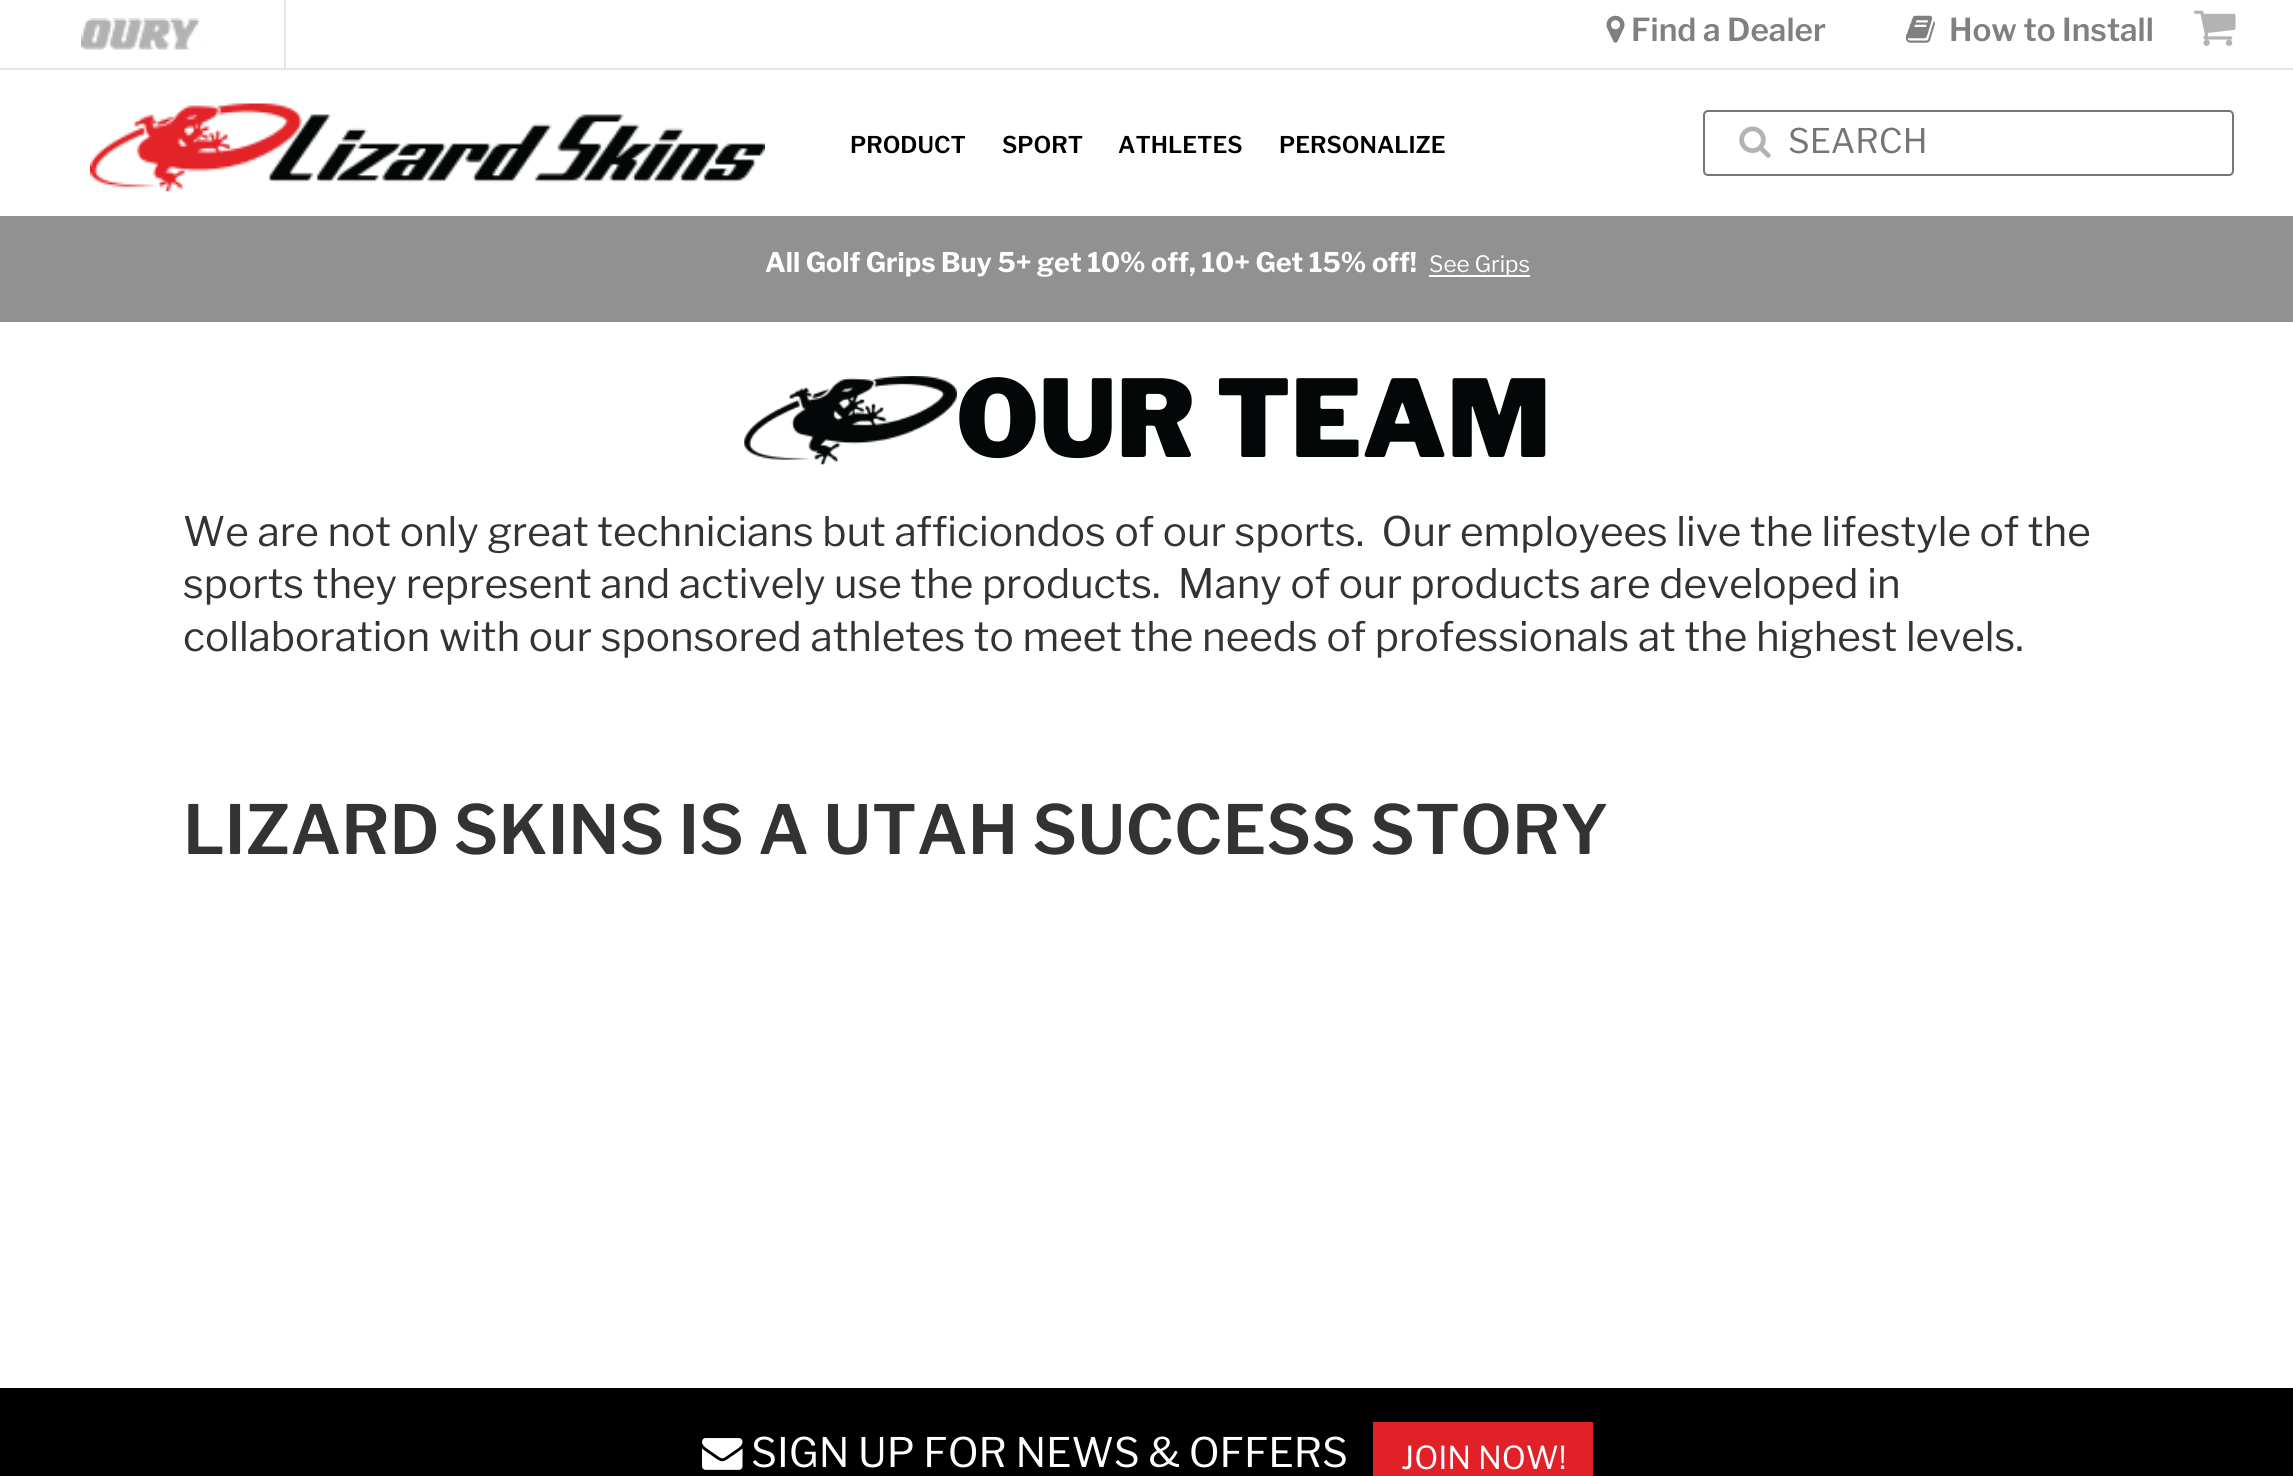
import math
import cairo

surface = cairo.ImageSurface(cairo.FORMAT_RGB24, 2293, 1476)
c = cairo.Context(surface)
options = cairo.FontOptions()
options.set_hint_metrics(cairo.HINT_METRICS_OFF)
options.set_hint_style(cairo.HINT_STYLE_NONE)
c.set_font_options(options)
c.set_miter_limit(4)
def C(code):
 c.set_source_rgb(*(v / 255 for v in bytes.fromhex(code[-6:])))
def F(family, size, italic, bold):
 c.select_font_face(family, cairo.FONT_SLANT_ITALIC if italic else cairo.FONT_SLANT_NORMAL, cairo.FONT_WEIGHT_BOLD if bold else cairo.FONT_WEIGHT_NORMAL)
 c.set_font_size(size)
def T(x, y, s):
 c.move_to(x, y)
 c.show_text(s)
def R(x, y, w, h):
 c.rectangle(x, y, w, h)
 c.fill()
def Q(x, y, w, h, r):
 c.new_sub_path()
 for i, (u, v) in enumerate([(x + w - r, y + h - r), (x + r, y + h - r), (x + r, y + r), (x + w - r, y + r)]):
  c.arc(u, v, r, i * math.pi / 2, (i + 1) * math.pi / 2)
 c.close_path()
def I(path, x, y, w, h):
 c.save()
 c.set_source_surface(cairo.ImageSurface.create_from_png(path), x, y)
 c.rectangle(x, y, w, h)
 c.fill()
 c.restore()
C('ffffff')
c.paint()
C('e5e5e5')
R(0,68,2293,2)
R(284,0,2,68)
I('1.png',81,18,121,32)
I('2.png',1606,15,19,28)
F('Libre Franklin SemiBold',31.5,0,0)
C('808080')
T(1631,41,'Find a Dealer')
I('3.png',1905,15,30,28)
T(1949,41,'How to Install')
I('4.png',2193,10,43,36)
I('5.png',90,103,675,89)
F('Libre Franklin SemiBold',23,0,0)
C('000000')
T(850,153,'PRODUCT')
T(1002,153,'SPORT')
T(1118,153,'ATHLETES')
T(1279,153,'PERSONALIZE')
Q(1704,111,529,64,4)
C('767676')
c.stroke()
I('6.png',1739,126,32,32)
F('Libre Franklin',33.75,0,0)
C('757575')
T(1788,153,'SEARCH')
C('919191')
R(0,216,2293,106)
F('Libre Franklin',27,0,1)
C('ffffff')
T(765,272,'All Golf Grips Buy 5+ get 10% off, 10+ Get 15% off!')
R(1429,275,101,2)
F('Libre Franklin',22.5,0,0)
T(1429,272,'See Grips')
I('7.png',744,376,213,89)
F('Libre Franklin Black',106.25,0,0)
C('040707')
T(956,457,'OUR TEAM')
F('Libre Franklin',40.5,0,0)
C('333333')
T(183,546,'We are not only great technicians but afficiondos of our sports.  Our employees live the lifestyle of the')
T(183,598,'sports they represent and actively use the products.  Many of our products are developed in')
T(183,651,'collaboration with our sponsored athletes to meet the needs of professionals at the highest levels.')
F('Libre Franklin SemiBold',67.5,0,0)
T(183,854,'LIZARD SKINS IS A UTAH SUCCESS STORY')
C('000000')
R(0,1388,2293,88)
I('8.png',702,1438,41,32)
F('Libre Franklin',40.5,0,0)
C('ffffff')
T(751,1467,'SIGN UP FOR NEWS & OFFERS')
C('e12027')
R(1373,1422,220,54)
F('Libre Franklin',31.5,0,0)
C('ffffff')
T(1401,1469,'JOIN NOW!')
surface.write_to_png('o.png')
